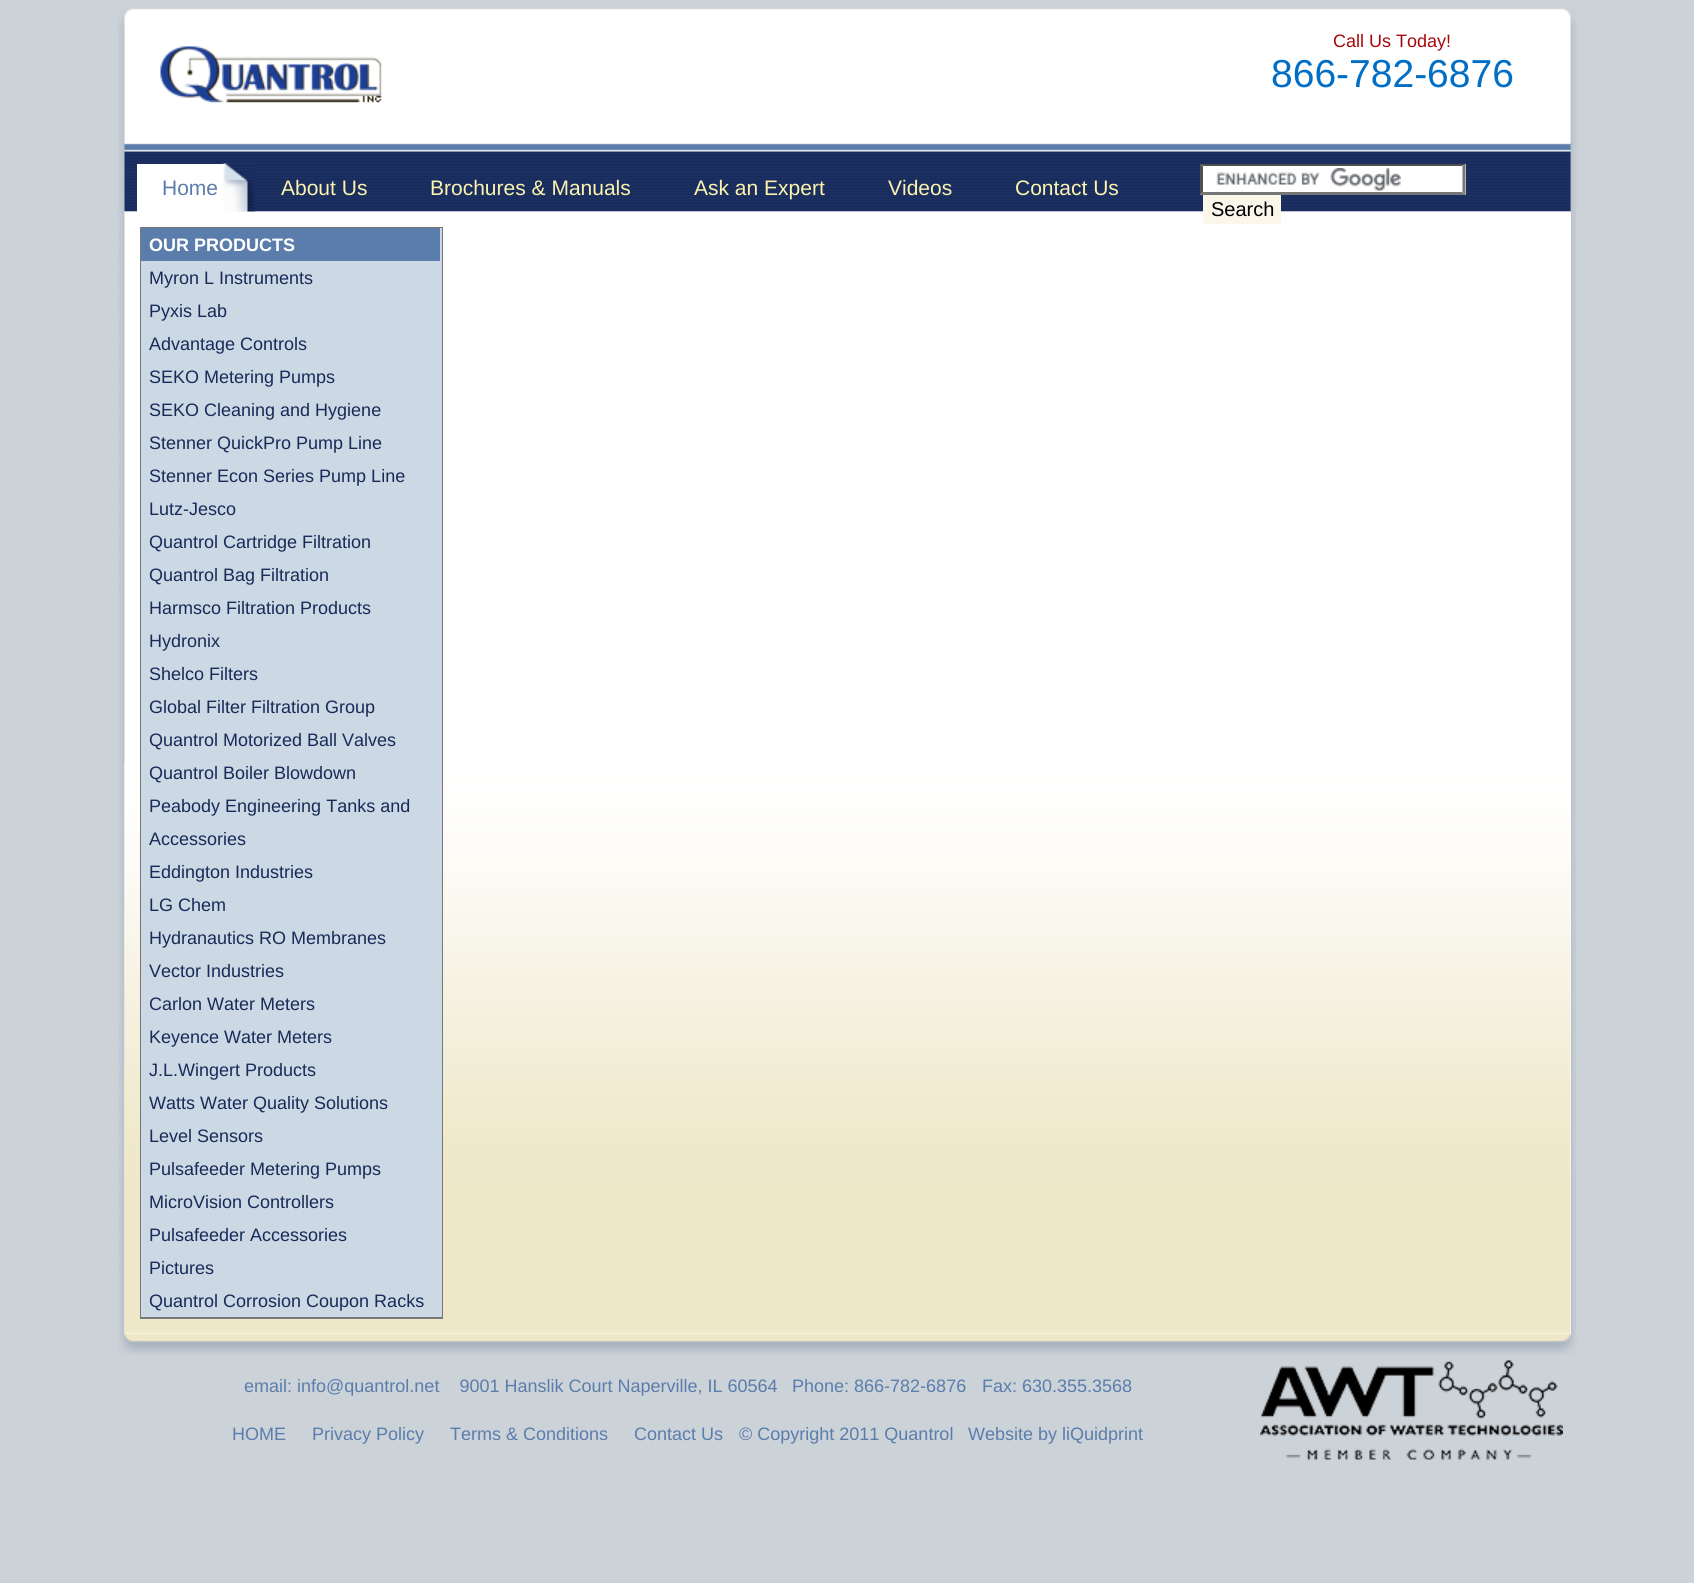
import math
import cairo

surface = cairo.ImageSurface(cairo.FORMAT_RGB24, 1694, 1583)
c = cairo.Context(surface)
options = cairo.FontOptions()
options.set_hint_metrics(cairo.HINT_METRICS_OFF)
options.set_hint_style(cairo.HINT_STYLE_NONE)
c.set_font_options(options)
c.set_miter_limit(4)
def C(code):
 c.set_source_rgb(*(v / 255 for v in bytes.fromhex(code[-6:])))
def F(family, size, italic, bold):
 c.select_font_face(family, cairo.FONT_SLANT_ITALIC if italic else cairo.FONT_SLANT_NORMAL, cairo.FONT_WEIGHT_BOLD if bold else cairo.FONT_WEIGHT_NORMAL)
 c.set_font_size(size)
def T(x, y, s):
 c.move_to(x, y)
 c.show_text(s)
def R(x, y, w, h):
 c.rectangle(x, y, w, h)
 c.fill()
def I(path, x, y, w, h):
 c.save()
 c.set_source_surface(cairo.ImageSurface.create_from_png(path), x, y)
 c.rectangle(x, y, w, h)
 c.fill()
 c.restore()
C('cbd2d8')
c.paint()
I('1.png',118,8,1459,204)
I('2.png',160,46,222,57)
F('Liberation Sans',18,0,0)
C('a7090a')
T(1333,47,'Call Us Today!')
F('Liberation Sans',39,0,0)
C('006ec5')
T(1271,87,'866-782-6876')
I('5.png',118,211,1458,1123)
C('ffffff')
R(137,164,118,48)
I('3.png',223,163,32,49)
F('Liberation Sans',21,0,0)
C('5a7dac')
T(162,195,'Home')
C('fcf4ad')
T(281,195,'About Us')
T(430,195,'Brochures & Manuals')
T(694,195,'Ask an Expert')
T(888,195,'Videos')
T(1015,195,'Contact Us')
C('ffffff')
R(1200,164,266,31)
I('4.png',1216,168,185,23)
C('4f4f4f')
c.new_path()
c.move_to(1200,164)
c.line_to(1466,164)
c.line_to(1462,166)
c.line_to(1203,166)
c.close_path()
c.fill()
C('767676')
c.new_path()
c.move_to(1465.5,163.5)
c.line_to(1465.5,195)
c.line_to(1462.5,192)
c.line_to(1462.5,166.5)
c.close_path()
c.fill()
c.new_path()
c.move_to(1466,195)
c.line_to(1200,195)
c.line_to(1203,192)
c.line_to(1462,192)
c.close_path()
c.fill()
C('4f4f4f')
c.new_path()
c.move_to(1200,195)
c.line_to(1200,163.5)
c.line_to(1203,166.5)
c.line_to(1203,192)
c.close_path()
c.fill()
I('7.png',118,1333,1459,22)
C('ffffff')
R(125,212,1446,1122)
C('faf6ea')
R(1203,195,78,29)
F('Liberation Sans',20,0,0)
C('000000')
T(1211,216,'Search')
I('6.png',124,763,1447,571)
c.rectangle(141,228,301,1090)
C('777777')
c.stroke()
C('5b7dab')
R(141,228,299,33)
C('ccd8e4')
R(440,228,2,33)
F('Liberation Sans',18,0,1)
C('ffffff')
T(149,251,'OUR PRODUCTS')
C('ccd8e4')
R(141,261,301,33)
F('Liberation Sans',18,0,0)
C('182a58')
T(149,284,'Myron L Instruments')
C('ccd8e4')
R(141,294,301,33)
C('182a58')
T(149,317,'Pyxis Lab')
C('ccd8e4')
R(141,327,301,33)
C('182a58')
T(149,350,'Advantage Controls')
C('ccd8e4')
R(141,360,301,33)
C('182a58')
T(149,383,'SEKO Metering Pumps')
C('ccd8e4')
R(141,393,301,33)
C('182a58')
T(149,416,'SEKO Cleaning and Hygiene')
C('ccd8e4')
R(141,426,301,33)
C('182a58')
T(149,449,'Stenner QuickPro Pump Line')
C('ccd8e4')
R(141,459,301,33)
C('182a58')
T(149,482,'Stenner Econ Series Pump Line')
C('ccd8e4')
R(141,492,301,33)
C('182a58')
T(149,515,'Lutz-Jesco')
C('ccd8e4')
R(141,525,301,33)
C('182a58')
T(149,548,'Quantrol Cartridge Filtration')
C('ccd8e4')
R(141,558,301,33)
C('182a58')
T(149,581,'Quantrol Bag Filtration')
C('ccd8e4')
R(141,591,301,33)
C('182a58')
T(149,614,'Harmsco Filtration Products')
C('ccd8e4')
R(141,624,301,33)
C('182a58')
T(149,647,'Hydronix')
C('ccd8e4')
R(141,657,301,33)
C('182a58')
T(149,680,'Shelco Filters')
C('ccd8e4')
R(141,690,301,33)
C('182a58')
T(149,713,'Global Filter Filtration Group')
C('ccd8e4')
R(141,723,301,33)
C('182a58')
T(149,746,'Quantrol Motorized Ball Valves')
C('ccd8e4')
R(141,756,301,33)
C('182a58')
T(149,779,'Quantrol Boiler Blowdown')
C('ccd8e4')
R(141,789,301,66)
C('182a58')
T(149,812,'Peabody Engineering Tanks and')
T(149,845,'Accessories')
C('ccd8e4')
R(141,855,301,33)
C('182a58')
T(149,878,'Eddington Industries')
C('ccd8e4')
R(141,888,301,33)
C('182a58')
T(149,911,'LG Chem')
C('ccd8e4')
R(141,921,301,33)
C('182a58')
T(149,944,'Hydranautics RO Membranes')
C('ccd8e4')
R(141,954,301,33)
C('182a58')
T(149,977,'Vector Industries')
C('ccd8e4')
R(141,987,301,33)
C('182a58')
T(149,1010,'Carlon Water Meters')
C('ccd8e4')
R(141,1020,301,33)
C('182a58')
T(149,1043,'Keyence Water Meters')
C('ccd8e4')
R(141,1053,301,33)
C('182a58')
T(149,1076,'J.L.Wingert Products')
C('ccd8e4')
R(141,1086,301,33)
C('182a58')
T(149,1109,'Watts Water Quality Solutions')
C('ccd8e4')
R(141,1119,301,33)
C('182a58')
T(149,1142,'Level Sensors')
C('ccd8e4')
R(141,1152,301,33)
C('182a58')
T(149,1175,'Pulsafeeder Metering Pumps')
C('ccd8e4')
R(141,1185,301,33)
C('182a58')
T(149,1208,'MicroVision Controllers')
C('ccd8e4')
R(141,1218,301,33)
C('182a58')
T(149,1241,'Pulsafeeder Accessories')
C('ccd8e4')
R(141,1251,301,33)
C('182a58')
T(149,1274,'Pictures')
C('ccd8e4')
R(141,1284,301,33)
C('182a58')
T(149,1307,'Quantrol Corrosion Coupon Racks')
C('5a7dac')
T(244,1392,'email: info@quantrol.net    9001 Hanslik Court Naperville, IL 60564')
T(792,1392,'Phone: 866-782-6876')
T(982,1392,'Fax: 630.355.3568')
I('8.png',1260,1360,303,100)
T(232,1440,'HOME')
T(312,1440,'Privacy Policy')
T(450,1440,'Terms & Conditions')
T(634,1440,'Contact Us')
T(739,1440,'© Copyright 2011 Quantrol')
T(968,1440,'Website by liQuidprint')
surface.write_to_png('o.png')
